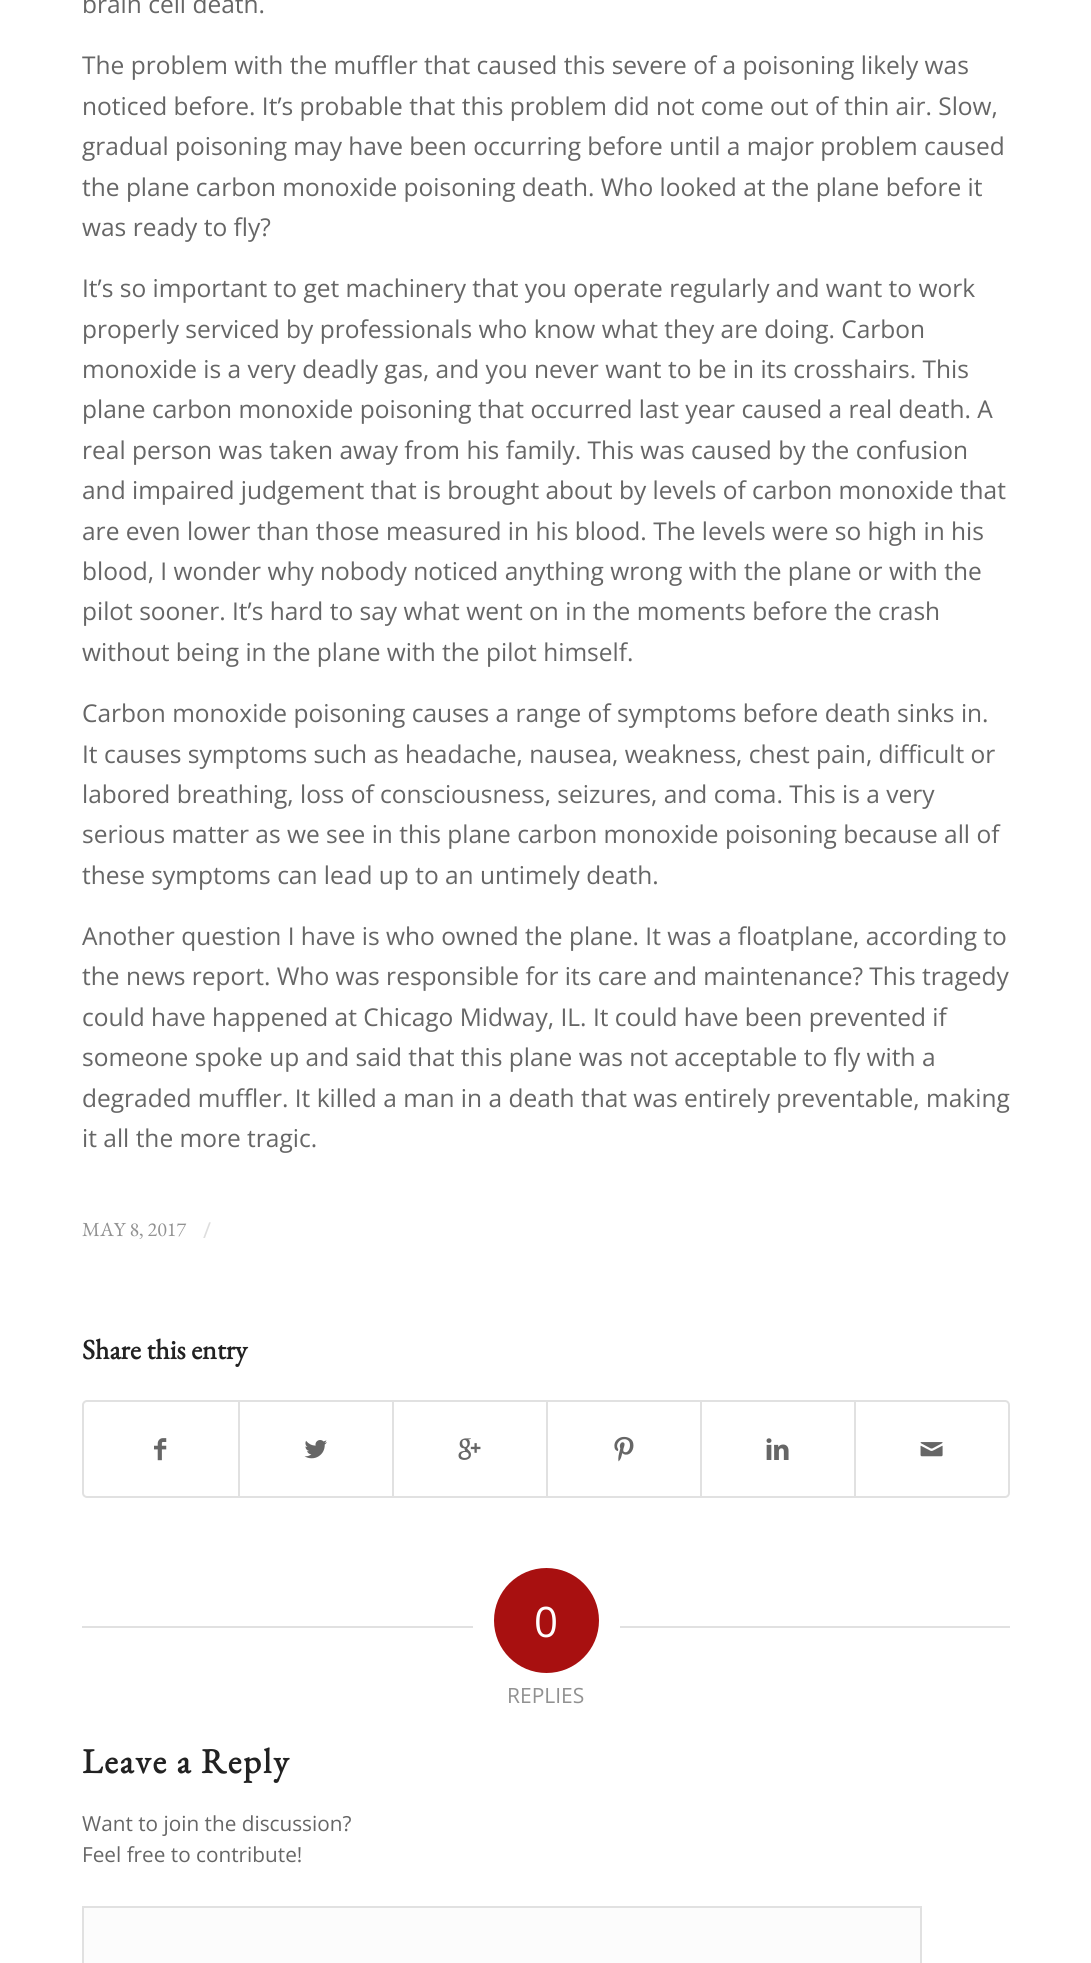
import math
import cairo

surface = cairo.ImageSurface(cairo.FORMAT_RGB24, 1091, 1963)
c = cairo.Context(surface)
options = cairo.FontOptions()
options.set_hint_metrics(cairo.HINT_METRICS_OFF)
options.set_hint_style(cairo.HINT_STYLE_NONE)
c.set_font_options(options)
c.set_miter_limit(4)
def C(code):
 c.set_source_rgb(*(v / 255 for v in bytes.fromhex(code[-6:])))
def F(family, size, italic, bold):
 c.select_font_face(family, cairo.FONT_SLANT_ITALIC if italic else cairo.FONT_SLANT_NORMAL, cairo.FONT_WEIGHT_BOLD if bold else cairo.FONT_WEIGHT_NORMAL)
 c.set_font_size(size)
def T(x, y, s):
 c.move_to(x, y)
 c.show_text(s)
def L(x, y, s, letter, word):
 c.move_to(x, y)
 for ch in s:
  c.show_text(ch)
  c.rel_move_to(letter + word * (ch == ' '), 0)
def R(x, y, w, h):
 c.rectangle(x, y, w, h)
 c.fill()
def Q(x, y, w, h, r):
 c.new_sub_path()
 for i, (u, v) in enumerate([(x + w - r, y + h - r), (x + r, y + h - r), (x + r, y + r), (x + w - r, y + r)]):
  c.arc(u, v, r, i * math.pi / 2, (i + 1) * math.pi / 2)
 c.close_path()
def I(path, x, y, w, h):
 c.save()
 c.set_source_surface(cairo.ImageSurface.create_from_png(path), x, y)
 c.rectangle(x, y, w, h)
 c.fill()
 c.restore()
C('ffffff')
c.paint()
F('Open Sans',24.5,0,0)
C('666666')
T(82,13,'brain cell death.')
T(82,74,'The problem with the muffler that caused this severe of a poisoning likely was')
T(82,115,'noticed before. It’s probable that this problem did not come out of thin air. Slow,')
T(82,155,'gradual poisoning may have been occurring before until a major problem caused')
T(82,196,'the plane carbon monoxide poisoning death. Who looked at the plane before it')
T(82,236,'was ready to fly?')
T(82,297,'It’s so important to get machinery that you operate regularly and want to work')
T(82,338,'properly serviced by professionals who know what they are doing. Carbon')
T(82,378,'monoxide is a very deadly gas, and you never want to be in its crosshairs. This')
T(82,418,'plane carbon monoxide poisoning that occurred last year caused a real death. A')
T(82,459,'real person was taken away from his family. This was caused by the confusion')
T(82,499,'and impaired judgement that is brought about by levels of carbon monoxide that')
T(82,540,'are even lower than those measured in his blood. The levels were so high in his')
T(82,580,'blood, I wonder why nobody noticed anything wrong with the plane or with the')
T(82,620,'pilot sooner. It’s hard to say what went on in the moments before the crash')
T(82,661,'without being in the plane with the pilot himself.')
T(82,722,'Carbon monoxide poisoning causes a range of symptoms before death sinks in.')
T(82,763,'It causes symptoms such as headache, nausea, weakness, chest pain, difficult or')
T(82,803,'labored breathing, loss of consciousness, seizures, and coma. This is a very')
T(82,843,'serious matter as we see in this plane carbon monoxide poisoning because all of')
T(82,884,'these symptoms can lead up to an untimely death.')
T(82,945,'Another question I have is who owned the plane. It was a floatplane, according to')
T(82,985,'the news report. Who was responsible for its care and maintenance? This tragedy')
T(82,1026,'could have happened at Chicago Midway, IL. It could have been prevented if')
T(82,1066,'someone spoke up and said that this plane was not acceptable to fly with a')
T(82,1107,'degraded muffler. It killed a man in a death that was entirely preventable, making')
T(82,1147,'it all the more tragic.')
F('EB Garamond',20,0,0)
C('919191')
T(82,1236,'MAY 8, 2017')
F('Open Sans',22,0,0)
C('dedede')
T(203,1238,'/')
F('EB Garamond',28,0,1)
C('222222')
T(82,1359,'Share this entry')
Q(83,1401,926,96,4)
C('e1e1e1')
c.stroke()
I('1.png',154,1438,13,23)
R(238,1402,2,94)
I('2.png',304,1440,23,19)
R(392,1402,2,94)
I('3.png',458,1438,23,22)
R(546,1402,2,94)
I('4.png',614,1436,20,26)
R(700,1402,2,94)
I('5.png',766,1438,23,22)
R(854,1402,2,94)
I('6.png',920,1442,23,15)
R(82,1626,391,2)
C('a81010')
c.arc(546.5,1620.5,52.5,0,2 * math.pi)
c.fill()
F('Open Sans',42,0,0)
C('ffffff')
T(534,1637,'0')
C('e1e1e1')
R(620,1626,390,2)
F('Open Sans',21,0,0)
C('919191')
T(507,1703,'REPLIES')
F('EB Garamond',35,0,1)
C('222222')
L(82,1773,'Leave a Reply',1.75,0)
F('Open Sans',20.75,0,0)
C('666666')
T(82,1831,'Want to join the discussion?')
T(82,1862,'Feel free to contribute!')
C('fcfcfc')
c.rectangle(83,1907,838,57)
c.fill_preserve()
C('e1e1e1')
c.stroke()
surface.write_to_png('o.png')
